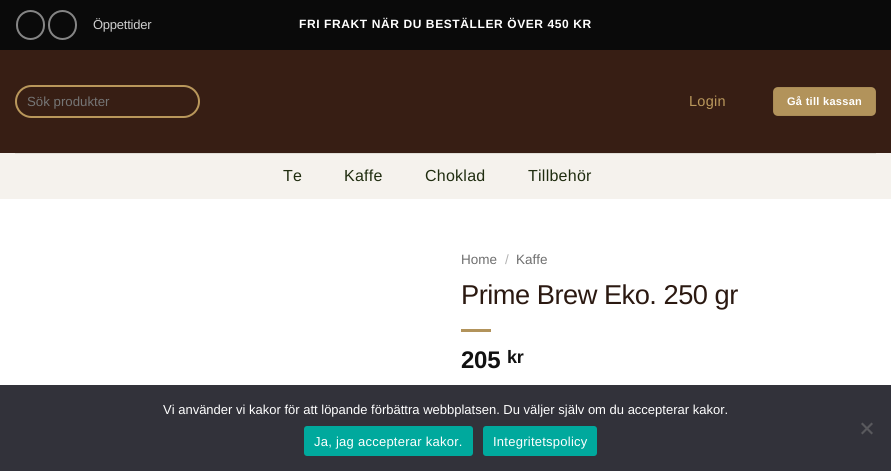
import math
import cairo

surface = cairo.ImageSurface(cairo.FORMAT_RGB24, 891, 471)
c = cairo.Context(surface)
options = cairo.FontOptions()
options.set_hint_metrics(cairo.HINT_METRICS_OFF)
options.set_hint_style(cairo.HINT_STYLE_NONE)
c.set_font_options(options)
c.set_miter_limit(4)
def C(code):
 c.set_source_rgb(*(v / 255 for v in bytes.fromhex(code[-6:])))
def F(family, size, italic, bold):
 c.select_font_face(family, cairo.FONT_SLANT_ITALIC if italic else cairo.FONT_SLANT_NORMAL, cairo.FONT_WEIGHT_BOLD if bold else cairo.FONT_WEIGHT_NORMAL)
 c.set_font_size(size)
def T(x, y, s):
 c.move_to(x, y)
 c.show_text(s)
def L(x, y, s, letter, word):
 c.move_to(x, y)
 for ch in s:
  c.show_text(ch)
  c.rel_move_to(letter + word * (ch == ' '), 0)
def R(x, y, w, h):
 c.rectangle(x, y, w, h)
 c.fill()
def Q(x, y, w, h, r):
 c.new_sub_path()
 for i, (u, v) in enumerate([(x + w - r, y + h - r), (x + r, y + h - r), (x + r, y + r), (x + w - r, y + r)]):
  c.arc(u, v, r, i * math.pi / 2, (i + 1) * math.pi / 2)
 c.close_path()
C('ffffff')
c.paint()
C('0a0a0a')
R(0,0,891,50)
Q(17,11,27,28,13.5)
C('858585')
c.stroke()
Q(49,11,27,28,13.5)
c.stroke()
F('Liberation Sans',13,0,0)
C('cecece')
L(93,29,'Öppettider',-.25,0)
F('Liberation Sans',12,0,1)
C('ffffff')
L(299,28,'FRI FRAKT NÄR DU BESTÄLLER ÖVER 450 KR',.6,0)
C('371e14')
R(0,50,891,103)
Q(16,86,183,31,15.5)
C('b9975b')
c.stroke()
F('Liberation Sans',13.25,0,0)
C('757575')
T(27,106,'Sök produkter')
F('Liberation Sans',14.5,0,0)
C('b9975b')
L(689,106,'Login',.25,0)
C('b2935b')
Q(773,87,103,29,5)
c.fill()
c.rectangle(773.5,87.5,102,28)
c.set_source_rgba(0,0,0,0.05)
c.set_line_width(1)
c.stroke()
F('Liberation Sans',11,0,1)
C('ffffff')
L(787,105,'Gå till kassan',.3,0)
C('f5f2ed')
R(0,153,891,46)
C('e0ded7')
R(15,153,861,1)
F('Liberation Sans',16,0,0)
C('202d10')
L(283,181,'Te',.25,0)
L(344,181,'Kaffe',.25,0)
L(425,181,'Choklad',.25,0)
L(528,181,'Tillbehör',.25,0)
F('Liberation Sans',13.5,0,0)
C('6e6e6e')
T(461,264,'Home')
C('b2b2b2')
T(505,264,'/')
C('6e6e6e')
T(516,264,'Kaffe')
F('Liberation Sans',27.25,0,0)
C('2b1911')
L(461,304,'Prime Brew Eko. 250 gr',-.5,0)
C('b2935b')
R(461,329,30,3)
F('Liberation Sans',24,0,1)
C('111111')
L(461,368,'205',-.25,0)
F('Liberation Sans',18,0,1)
L(507,363,'kr',-.25,0)
C('32323a')
R(0,385,891,86)
F('Liberation Sans',13,0,0)
C('ffffff')
T(163,414,'Vi använder vi kakor för att löpande förbättra webbplatsen. Du väljer själv om du accepterar kakor.')
C('59595d')
c.new_path()
c.move_to(871.5,422.5)
c.line_to(873,424)
c.line_to(862.5,434.5)
c.line_to(861,433)
c.close_path()
c.fill()
c.new_path()
c.move_to(861,424)
c.line_to(862.5,422.5)
c.line_to(873,433)
c.line_to(871.5,434.5)
c.close_path()
c.fill()
C('00a99d')
Q(304,426,169,30,3)
c.fill()
C('ffffff')
L(314,446,'Ja, jag accepterar kakor.',.25,0)
C('00a99d')
Q(483,426,114,30,3)
c.fill()
C('ffffff')
L(493,446,'Integritetspolicy',.25,0)
surface.write_to_png('o.png')
